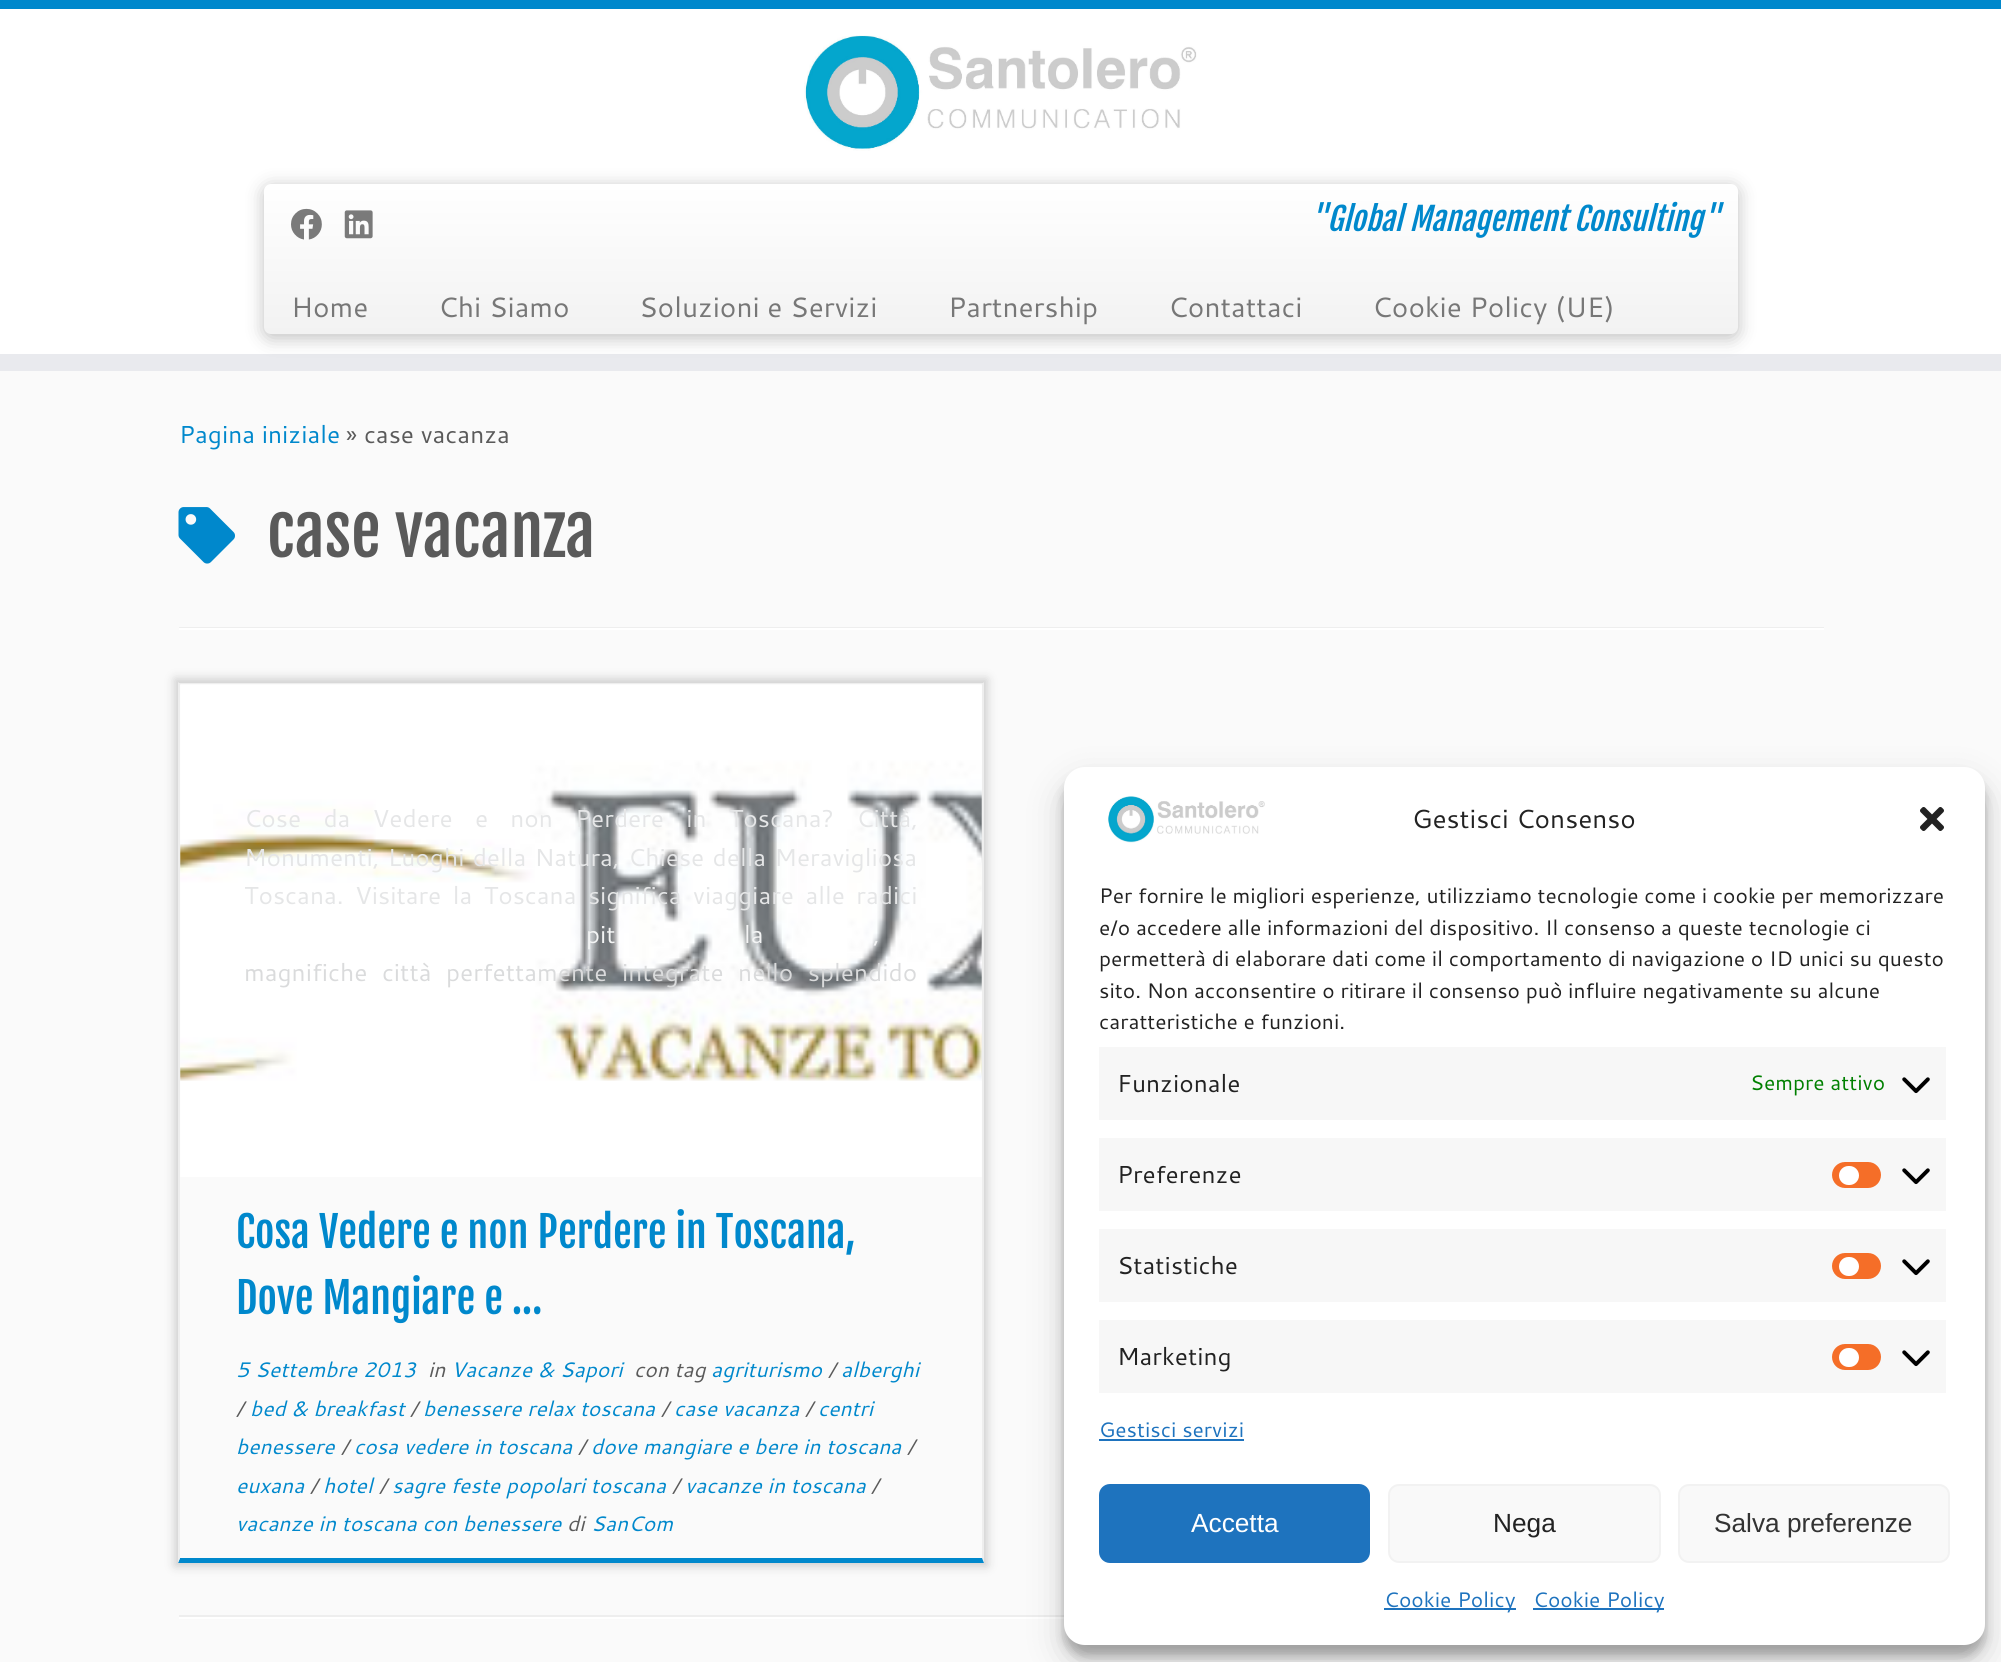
import math
import cairo

surface = cairo.ImageSurface(cairo.FORMAT_RGB24, 2001, 1662)
c = cairo.Context(surface)
options = cairo.FontOptions()
options.set_hint_metrics(cairo.HINT_METRICS_OFF)
options.set_hint_style(cairo.HINT_STYLE_NONE)
c.set_font_options(options)
c.set_miter_limit(4)
def C(code):
 c.set_source_rgb(*(v / 255 for v in bytes.fromhex(code[-6:])))
def F(family, size, italic, bold):
 c.select_font_face(family, cairo.FONT_SLANT_ITALIC if italic else cairo.FONT_SLANT_NORMAL, cairo.FONT_WEIGHT_BOLD if bold else cairo.FONT_WEIGHT_NORMAL)
 c.set_font_size(size)
def T(x, y, s):
 c.move_to(x, y)
 c.show_text(s)
def L(x, y, s, letter, word):
 c.move_to(x, y)
 for ch in s:
  c.show_text(ch)
  c.rel_move_to(letter + word * (ch == ' '), 0)
def R(x, y, w, h):
 c.rectangle(x, y, w, h)
 c.fill()
def Q(x, y, w, h, r):
 c.new_sub_path()
 for i, (u, v) in enumerate([(x + w - r, y + h - r), (x + r, y + h - r), (x + r, y + r), (x + w - r, y + r)]):
  c.arc(u, v, r, i * math.pi / 2, (i + 1) * math.pi / 2)
 c.close_path()
def S(x, y, w, h, r, blur, alpha):
 c.push_group_with_content(cairo.CONTENT_ALPHA)
 c.set_operator(cairo.OPERATOR_SOURCE)
 for i in range(15, -16, -2):
  e = blur * i / 6
  if min(w, h) + 2 * e > 0:
   c.set_source_rgba(0, 0, 0, alpha * math.erfc((i - 1) / 8.5) / 2)
   Q(x - e, y - e, w + 2 * e, h + 2 * e, max(0, min(r + e + blur * .6, min(w, h) / 2 + e)))
   c.fill()
 c.mask(c.pop_group())
def I(path, x, y, w, h):
 c.save()
 c.set_source_surface(cairo.ImageSurface.create_from_png(path), x, y)
 c.rectangle(x, y, w, h)
 c.fill()
 c.restore()
C('fafafa')
c.paint()
C('ffffff')
R(0,9,2001,345)
C('0088cc')
R(0,0,2001,9)
C('e9eaee')
R(0,354,2001,17)
I('1.png',804,35,393,116)
C('000000')
S(264,187,1474,151,7,9,.25)
gradient = cairo.LinearGradient(1001,184,1001,334)
gradient.add_color_stop_rgba(0,1,1,1,1)
gradient.add_color_stop_rgba(1,0.949,0.949,0.949,1)
c.set_source(gradient)
Q(264,184,1474,150,7)
c.fill()
I('2.png',291,208,31,32)
I('3.png',344,210,29,29)
F('Fjalla One',31.5,1,0)
C('0088cc')
T(1310,231,'"Global Management Consulting"')
F('Cantarell',28,0,0)
C('777777')
T(291,317,'Home')
T(438,317,'Chi Siamo')
T(639,317,'Soluzioni e Servizi')
T(948,317,'Partnership')
T(1168,317,'Contattaci')
T(1372,317,'Cookie Policy (UE)')
F('Cantarell',24.5,0,0)
C('0088cc')
T(179,443,'Pagina iniziale')
C('5a5a5a')
T(346,443,'» case vacanza')
I('4.png',178,507,57,57)
F('Fjalla One',66.5,0,0)
T(267,557,'case vacanza')
C('eeeeee')
R(179,627,1645,1)
C('ffffff')
R(179,628,1645,2)
c.save()
c.set_fill_rule(cairo.FILL_RULE_EVEN_ODD)
c.new_path()
c.move_to(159,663)
c.line_to(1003,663)
c.line_to(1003,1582)
c.line_to(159,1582)
c.close_path()
c.move_to(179,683)
c.line_to(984,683)
c.line_to(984,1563)
c.line_to(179,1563)
c.close_path()
c.clip()
C('cccccc')
S(175,679,812,887,0,5,1)
c.restore()
C('eeeeee')
R(179,683,805,2)
c.new_path()
c.move_to(984,682)
c.line_to(984,1563)
c.line_to(982,1558)
c.line_to(982,684)
c.close_path()
c.fill()
C('0088cc')
c.new_path()
c.move_to(984,1563)
c.line_to(178,1563)
c.line_to(180,1558)
c.line_to(982,1558)
c.close_path()
c.fill()
C('eeeeee')
c.new_path()
c.move_to(178,1563)
c.line_to(178,682)
c.line_to(180,684)
c.line_to(180,1558)
c.close_path()
c.fill()
I('5.png',180,684,802,493)
F('Cantarell',24.5,0,0)
C('e5e6e7')
L(244,827,'Cose da Vedere e non Perdere in Toscana? Città,',0,15.5)
L(244,866,'Monumenti, Luoghi della Natura, Chiese della Meravigliosa',0,1.5)
L(244,904,'Toscana. Visitare la Toscana significa viaggiare alle radici',0,4.75)
C('f3f4f4')
L(586,943,'pit',0,11)
L(744,943,'la',0,11)
L(873,943,',',0,11)
C('dadbdc')
L(244,981,'magnifiche città perfettamente integrate nello splendido',0,7.75)
F('Fjalla One',42,0,0)
C('0088cc')
T(236,1248,'Cosa Vedere e non Perdere in Toscana,')
T(236,1314,'Dove Mangiare e ...')
F('Cantarell',21,1,0)
T(236,1377,'5 Settembre 2013')
C('5a5a5a')
T(428,1377,'in')
C('0088cc')
T(451,1377,'Vacanze & Sapori')
C('5a5a5a')
T(634,1377,'con tag')
C('0088cc')
T(711,1377,'agriturismo')
C('5a5a5a')
T(828,1377,'/')
C('0088cc')
T(841,1377,'alberghi')
C('5a5a5a')
T(236,1416,'/')
C('0088cc')
T(250,1416,'bed & breakfast')
C('5a5a5a')
T(410,1416,'/')
C('0088cc')
T(423,1416,'benessere relax toscana')
C('5a5a5a')
T(661,1416,'/')
C('0088cc')
T(674,1416,'case vacanza')
C('5a5a5a')
T(805,1416,'/')
C('0088cc')
T(818,1416,'centri')
T(236,1454,'benessere')
C('5a5a5a')
T(341,1454,'/')
C('0088cc')
T(354,1454,'cosa vedere in toscana')
C('5a5a5a')
T(578,1454,'/')
C('0088cc')
T(591,1454,'dove mangiare e bere in toscana')
C('5a5a5a')
T(907,1454,'/')
C('0088cc')
T(236,1493,'euxana')
C('5a5a5a')
T(310,1493,'/')
C('0088cc')
T(323,1493,'hotel')
C('5a5a5a')
T(379,1493,'/')
C('0088cc')
T(392,1493,'sagre feste popolari toscana')
C('5a5a5a')
T(672,1493,'/')
C('0088cc')
T(685,1493,'vacanze in toscana')
C('5a5a5a')
T(871,1493,'/')
C('0088cc')
T(236,1531,'vacanze in toscana con benessere')
C('5a5a5a')
T(567,1531,'di')
C('0088cc')
T(591,1531,'SanCom')
C('eeeeee')
R(179,1615,885,2)
C('ffffff')
R(179,1617,885,2)
C('000000')
S(1064,777,921,879,21,5,.23)
S(1064,784,921,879,21,17.5,.19)
C('ffffff')
Q(1064,767,921,878,21)
c.fill()
I('6.png',1108,796,157,47)
F('Cantarell',26.25,0,0)
C('222222')
T(1412,828,'Gestisci Consenso')
I('7.png',1920,807,24,24)
F('Cantarell',21,0,0)
T(1099,903,'Per fornire le migliori esperienze, utilizziamo tecnologie come i cookie per memorizzare')
T(1099,935,'e/o accedere alle informazioni del dispositivo. Il consenso a queste tecnologie ci')
T(1099,966,'permetterà di elaborare dati come il comportamento di navigazione o ID unici su questo')
T(1099,998,'sito. Non acconsentire o ritirare il consenso può influire negativamente su alcune')
T(1099,1029,'caratteristiche e funzioni.')
C('f7f7f7')
R(1099,1047,847,73)
F('Cantarell',24.5,0,0)
C('222222')
T(1117,1092,'Funzionale')
F('Cantarell',21,0,0)
C('008000')
T(1750,1090,'Sempre attivo')
I('8.png',1902,1077,28,17)
C('f7f7f7')
R(1099,1138,847,73)
F('Cantarell',24.5,0,0)
C('222222')
T(1117,1183,'Preferenze')
C('f56e28')
Q(1832,1162,49,26,13)
c.fill()
C('ffffff')
Q(1839,1166,20,19,9.5)
c.fill()
I('8.png',1902,1168,28,17)
C('f7f7f7')
R(1099,1229,847,73)
C('222222')
T(1117,1274,'Statistiche')
C('f56e28')
Q(1832,1253,49,26,13)
c.fill()
C('ffffff')
Q(1839,1257,20,19,9.5)
c.fill()
I('8.png',1902,1259,28,17)
C('f7f7f7')
R(1099,1320,847,73)
C('222222')
T(1117,1365,'Marketing')
C('f56e28')
Q(1832,1344,49,26,13)
c.fill()
C('ffffff')
Q(1839,1348,20,19,9.5)
c.fill()
I('8.png',1902,1350,28,17)
F('Cantarell',21,0,0)
C('1e73be')
T(1099,1437,'Gestisci servizi')
R(1099,1439,145,2)
Q(1100,1485,269,77,10)
c.fill_preserve()
c.stroke()
F('Liberation Sans',26.25,0,0)
C('ffffff')
T(1191,1532,'Accetta')
C('f9f9f9')
Q(1389,1485,271,77,10)
c.fill_preserve()
C('f2f2f2')
c.stroke()
C('222222')
T(1493,1532,'Nega')
C('f9f9f9')
Q(1679,1485,270,77,10)
c.fill_preserve()
C('f2f2f2')
c.stroke()
C('333333')
T(1714,1532,'Salva preferenze')
C('1e73be')
R(1384,1608,132,2)
F('Cantarell',21,0,0)
T(1384,1607,'Cookie Policy')
R(1533,1608,131,2)
T(1533,1607,'Cookie Policy')
surface.write_to_png('o.png')
